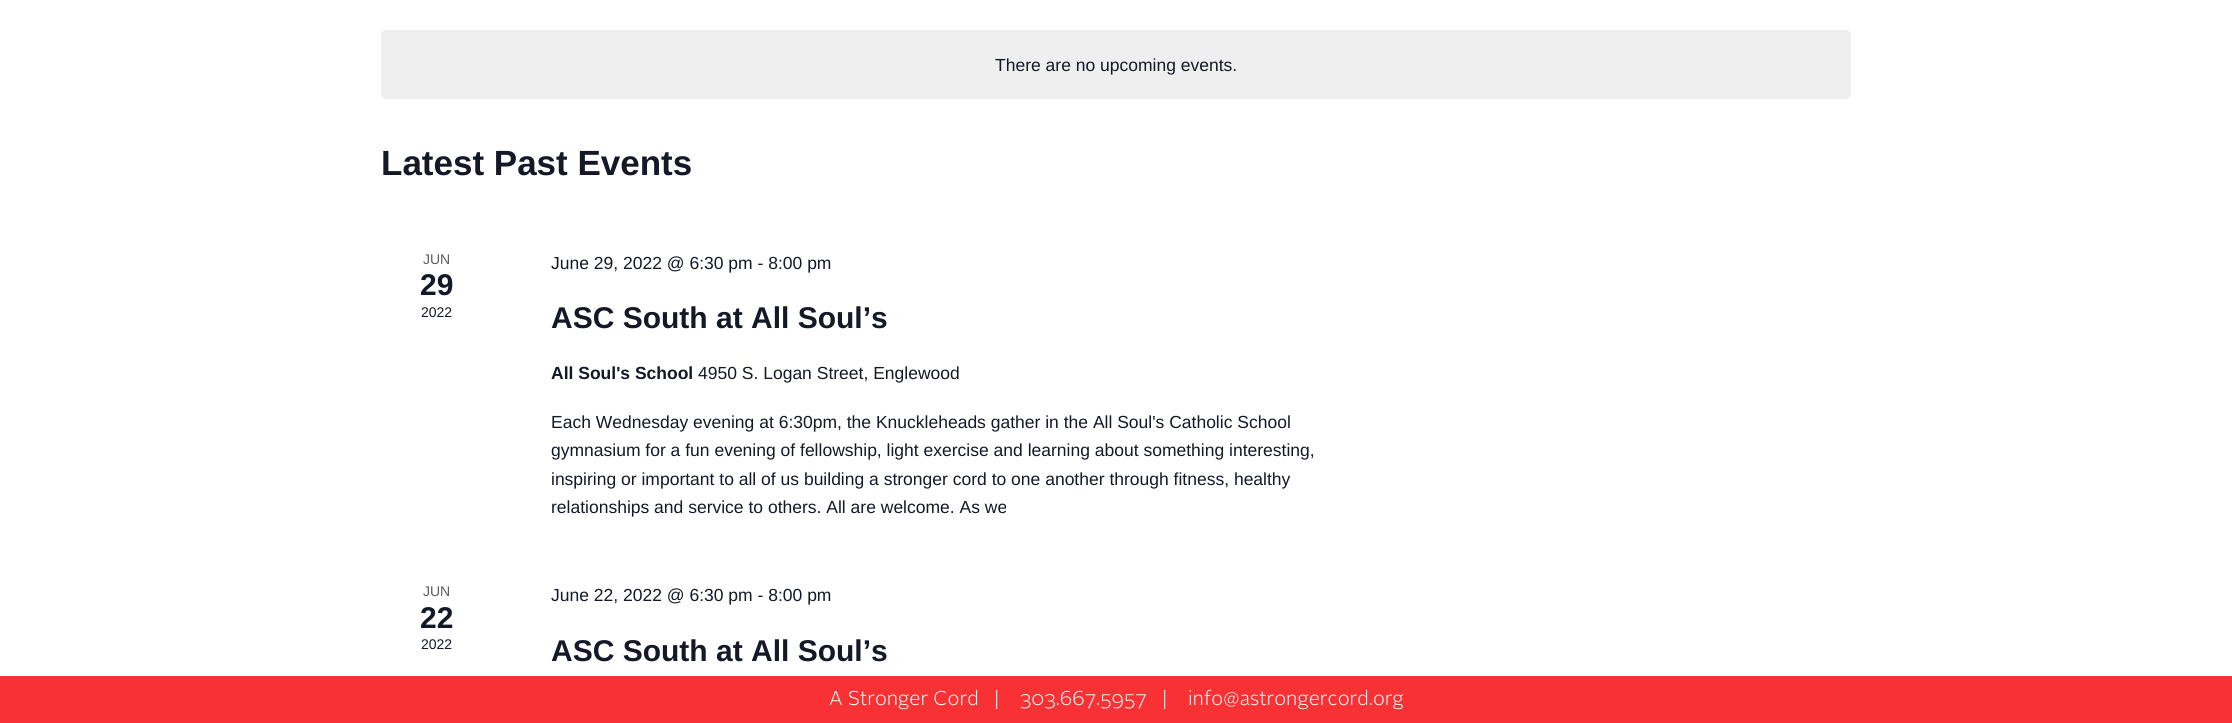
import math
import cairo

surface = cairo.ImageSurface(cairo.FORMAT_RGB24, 2232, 723)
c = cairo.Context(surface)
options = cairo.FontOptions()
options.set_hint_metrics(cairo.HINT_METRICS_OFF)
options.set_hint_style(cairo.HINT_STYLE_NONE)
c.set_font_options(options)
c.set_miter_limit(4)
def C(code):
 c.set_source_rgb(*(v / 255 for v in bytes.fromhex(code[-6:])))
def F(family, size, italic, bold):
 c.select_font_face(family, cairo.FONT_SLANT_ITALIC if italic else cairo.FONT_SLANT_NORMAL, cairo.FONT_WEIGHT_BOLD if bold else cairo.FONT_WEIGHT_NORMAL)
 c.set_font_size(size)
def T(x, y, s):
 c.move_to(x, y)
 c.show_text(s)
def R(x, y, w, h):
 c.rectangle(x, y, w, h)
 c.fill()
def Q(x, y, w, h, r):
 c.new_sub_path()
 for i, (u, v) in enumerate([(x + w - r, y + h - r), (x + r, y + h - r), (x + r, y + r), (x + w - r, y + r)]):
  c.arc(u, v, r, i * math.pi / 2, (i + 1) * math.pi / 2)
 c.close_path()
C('ffffff')
c.paint()
C('efeff0')
Q(381,30,1470,69,5)
c.fill()
F('Liberation Sans',17.5,0,0)
C('141827')
T(995,71,'There are no upcoming events.')
F('Liberation Sans',35,0,1)
T(381,175,'Latest Past Events')
F('Liberation Sans',14,0,0)
C('5d5d5d')
T(423,264,'JUN')
F('Liberation Sans',30,0,1)
C('141827')
T(420,295,'29')
F('Liberation Sans',14,0,0)
T(421,317,'2022')
F('Liberation Sans',17.5,0,0)
T(551,269,'June 29, 2022 @ 6:30 pm - 8:00 pm')
F('Liberation Sans',30,0,1)
T(551,328,'ASC South at All Soul’s')
F('Liberation Sans',17.5,0,1)
T(551,379,'All Soul\'s School')
F('Liberation Sans',17.5,0,0)
T(698,379,'4950 S. Logan Street, Englewood')
T(551,428,'Each Wednesday evening at 6:30pm, the Knuckleheads gather in the All Soul\'s Catholic School')
T(551,456,'gymnasium for a fun evening of fellowship, light exercise and learning about something interesting,')
T(551,485,'inspiring or important to all of us building a stronger cord to one another through fitness, healthy')
T(551,513,'relationships and service to others. All are welcome. As we')
F('Liberation Sans',14,0,0)
C('5d5d5d')
T(423,596,'JUN')
F('Liberation Sans',30,0,1)
C('141827')
T(420,628,'22')
F('Liberation Sans',14,0,0)
T(421,649,'2022')
F('Liberation Sans',17.5,0,0)
T(551,601,'June 22, 2022 @ 6:30 pm - 8:00 pm')
F('Liberation Sans',30,0,1)
T(551,661,'ASC South at All Soul’s')
C('f83135')
R(0,676,2232,47)
F('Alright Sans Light',20,0,0)
C('ffffff')
T(829,705,'A Stronger Cord   |    303.667.5957   |')
T(1188,705,'info@astrongercord.org')
surface.write_to_png('o.png')
